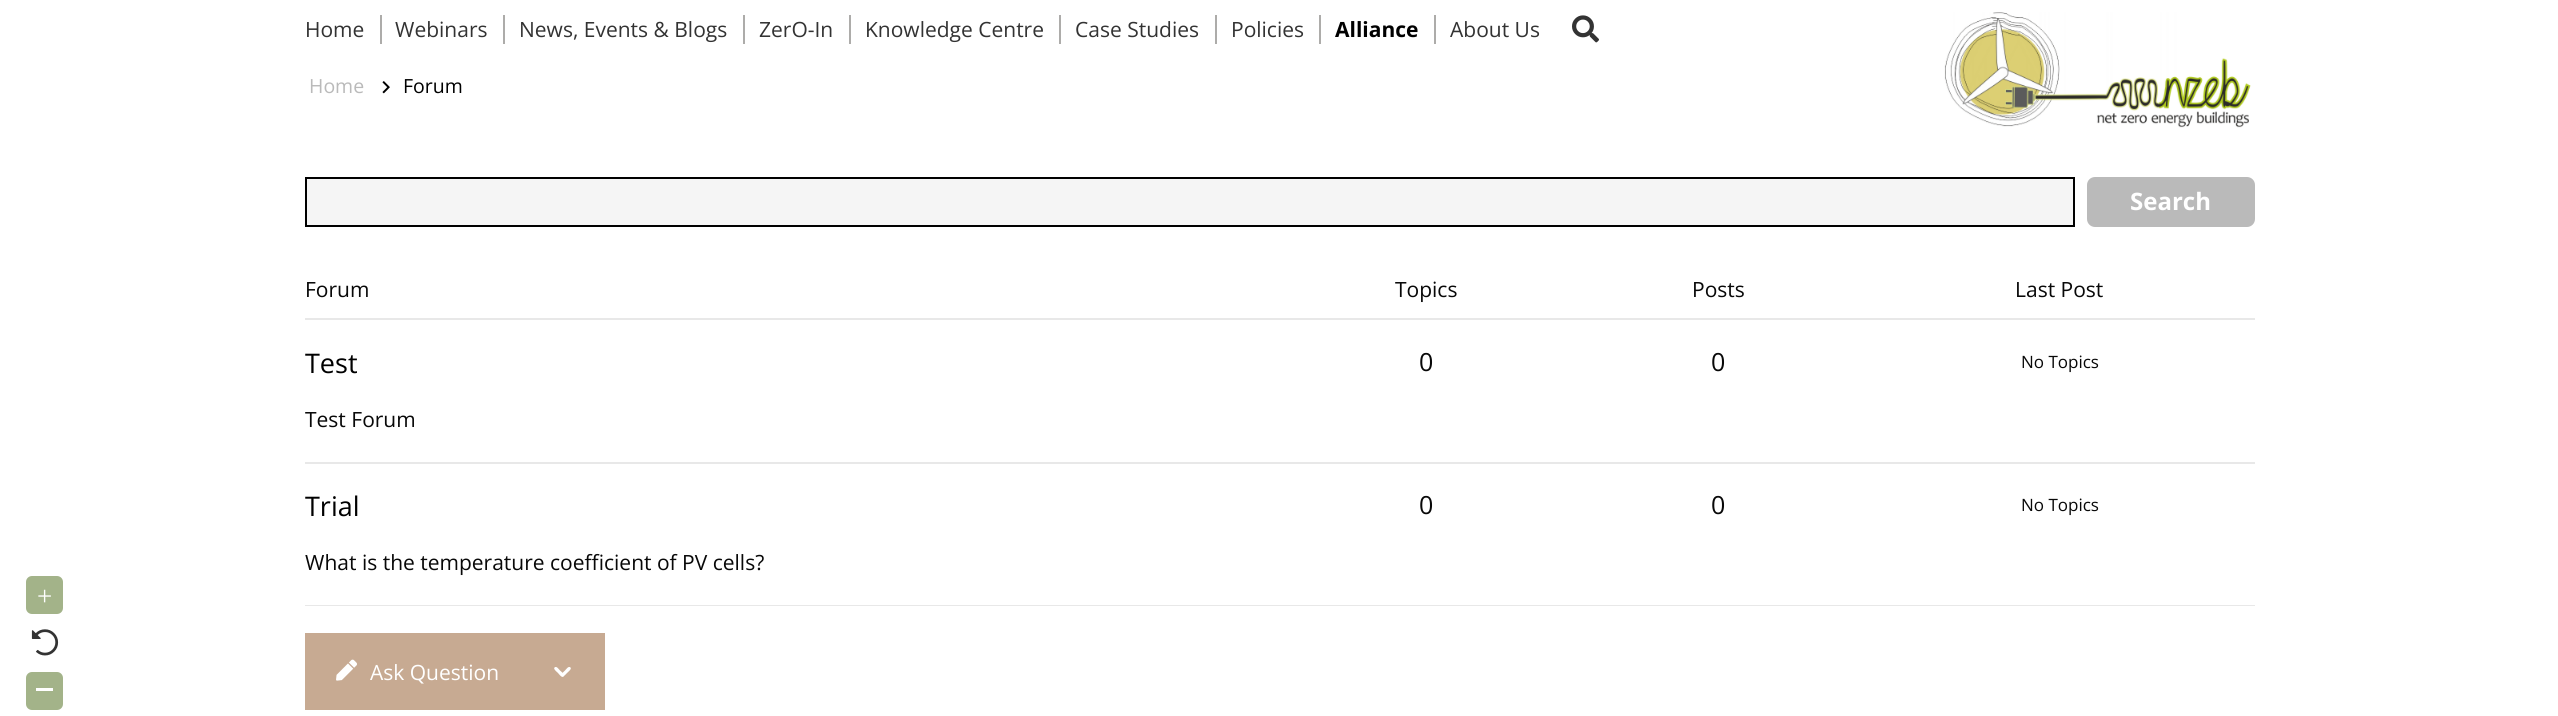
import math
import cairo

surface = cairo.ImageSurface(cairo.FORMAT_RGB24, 2558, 716)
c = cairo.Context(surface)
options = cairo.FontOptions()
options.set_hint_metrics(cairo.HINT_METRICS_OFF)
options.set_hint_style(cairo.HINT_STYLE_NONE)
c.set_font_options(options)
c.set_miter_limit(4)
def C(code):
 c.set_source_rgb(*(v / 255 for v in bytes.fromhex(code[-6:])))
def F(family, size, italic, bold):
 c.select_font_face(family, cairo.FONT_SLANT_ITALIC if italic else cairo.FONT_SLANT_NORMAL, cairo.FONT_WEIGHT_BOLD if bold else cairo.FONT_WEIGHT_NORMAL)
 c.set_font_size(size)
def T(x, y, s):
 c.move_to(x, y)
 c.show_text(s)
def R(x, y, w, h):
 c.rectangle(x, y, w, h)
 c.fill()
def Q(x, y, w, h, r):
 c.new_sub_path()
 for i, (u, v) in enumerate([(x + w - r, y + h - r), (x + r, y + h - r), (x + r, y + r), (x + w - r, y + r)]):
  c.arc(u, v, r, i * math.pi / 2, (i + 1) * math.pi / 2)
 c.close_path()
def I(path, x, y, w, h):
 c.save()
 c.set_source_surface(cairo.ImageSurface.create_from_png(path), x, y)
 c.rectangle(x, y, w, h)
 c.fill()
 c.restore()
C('ffffff')
c.paint()
F('Open Sans',21,0,0)
C('333333')
T(305,37,'Home')
C('adacaa')
R(380,15,2,29)
C('333333')
T(395,37,'Webinars')
C('adacaa')
R(503,15,2,29)
C('333333')
T(519,37,'News, Events & Blogs')
C('adacaa')
R(743,15,2,29)
C('333333')
T(759,37,'ZerO-In')
C('adacaa')
R(849,15,2,29)
C('333333')
T(865,37,'Knowledge Centre')
C('adacaa')
R(1059,15,2,29)
C('333333')
T(1075,37,'Case Studies')
C('adacaa')
R(1215,15,2,29)
C('333333')
T(1231,37,'Policies')
C('adacaa')
R(1319,15,2,29)
F('Open Sans',21,0,1)
C('000000')
T(1335,37,'Alliance')
C('adacaa')
R(1434,15,2,29)
F('Open Sans',21,0,0)
C('333333')
T(1450,37,'About Us')
I('1.png',1572,15,27,28)
F('Open Sans',19.5,0,0)
C('bababa')
T(309,93,'Home')
I('2.png',382,81,8,13)
C('000000')
T(403,93,'Forum')
C('a3b389')
Q(26,576,37,38,6)
c.fill()
F('Liberation Serif',27,0,0)
C('ffffff')
T(37,605,'+')
I('3.png',31,629,28,27)
C('a3b389')
Q(26,672,37,38,6)
c.fill()
C('ffffff')
R(36,688,17,3)
I('4.png',1944,12,307,116)
C('f5f5f5')
c.rectangle(306,178,1768,48)
c.fill_preserve()
C('000000')
c.stroke()
C('bababa')
Q(2087,177,168,50,8)
c.fill()
F('Open Sans',24,0,1)
C('ffffff')
T(2130,210,'Search')
C('e8e8e8')
R(305,318,1950,2)
F('Open Sans',21,0,0)
C('080808')
T(305,297,'Forum')
T(1395,297,'Topics')
T(1692,297,'Posts')
T(2015,297,'Last Post')
C('e8e8e8')
R(305,462,1950,2)
c.save()
c.rectangle(305,320,1950,142)
c.clip()
F('Open Sans',27,0,0)
C('000000')
T(305,373,'Test')
c.restore()
C('080808')
T(305,427,'Test Forum')
F('Open Sans',25,0,0)
T(1419,371,'0')
T(1711,371,'0')
F('Open Sans',17,0,0)
T(2021,368,'No Topics')
C('e8e8e8')
R(305,605,1950,1)
c.save()
c.rectangle(305,464,1950,141)
c.clip()
F('Open Sans',27,0,0)
C('000000')
T(305,516,'Trial')
c.restore()
F('Open Sans',21,0,0)
C('080808')
T(305,570,'What is the temperature coefficient of PV cells?')
F('Open Sans',25,0,0)
T(1419,514,'0')
T(1711,514,'0')
F('Open Sans',17,0,0)
T(2021,511,'No Topics')
C('c7aa92')
R(305,633,300,77)
I('5.png',336,659,21,22)
F('Open Sans',21,0,0)
C('ffffff')
T(370,680,'Ask Question')
c.new_path()
c.move_to(554.5,667.5)
c.curve_to(556.5,665.5,559,669.5,560,670.5)
c.curve_to(561,671.5,565.5,674.5,563.5,676.5)
c.curve_to(561.5,678,559,674,558,673)
c.curve_to(557,672,553,669,554.5,667.5)
c.close_path()
c.fill()
c.new_path()
c.move_to(570.5,667.5)
c.curve_to(572,669,568,672,567,673)
c.curve_to(566,674,563,678,561.5,676)
c.curve_to(560,674.5,564,671.5,565,670.5)
c.curve_to(566,669.5,568.5,665.5,570.5,667.5)
c.close_path()
c.fill()
surface.write_to_png('o.png')
